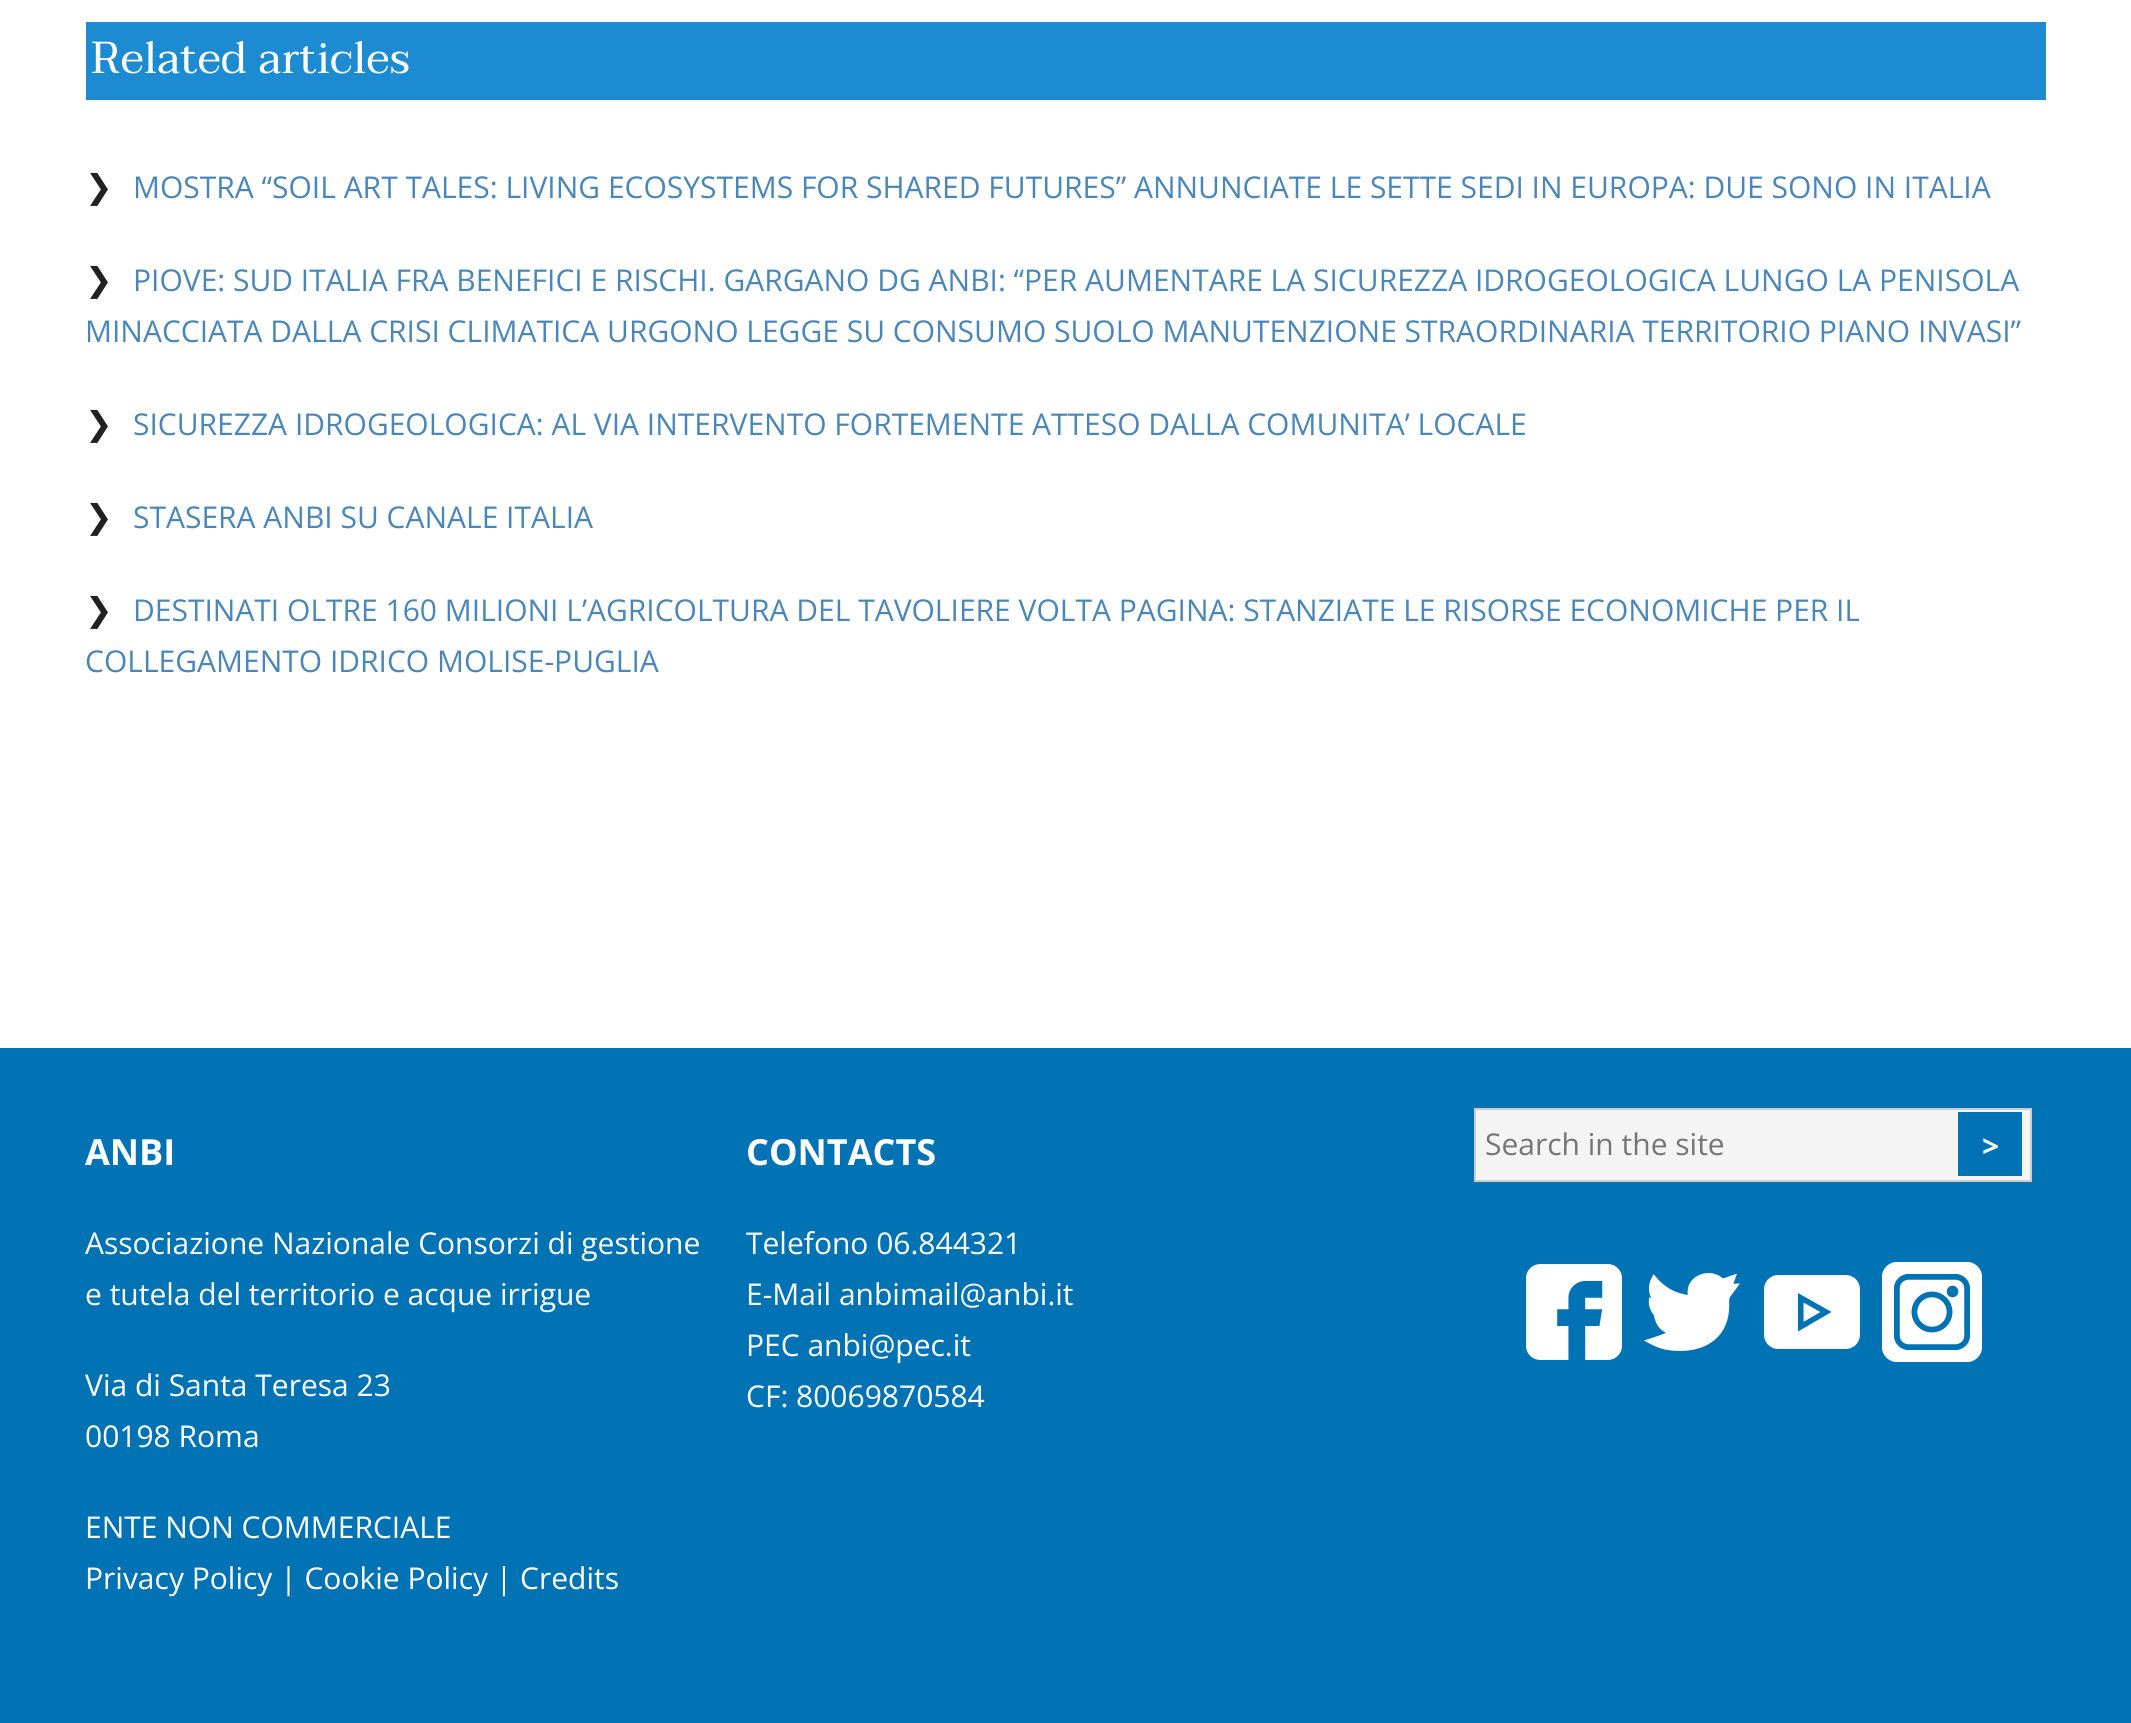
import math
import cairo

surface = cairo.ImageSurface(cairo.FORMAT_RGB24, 2131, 1723)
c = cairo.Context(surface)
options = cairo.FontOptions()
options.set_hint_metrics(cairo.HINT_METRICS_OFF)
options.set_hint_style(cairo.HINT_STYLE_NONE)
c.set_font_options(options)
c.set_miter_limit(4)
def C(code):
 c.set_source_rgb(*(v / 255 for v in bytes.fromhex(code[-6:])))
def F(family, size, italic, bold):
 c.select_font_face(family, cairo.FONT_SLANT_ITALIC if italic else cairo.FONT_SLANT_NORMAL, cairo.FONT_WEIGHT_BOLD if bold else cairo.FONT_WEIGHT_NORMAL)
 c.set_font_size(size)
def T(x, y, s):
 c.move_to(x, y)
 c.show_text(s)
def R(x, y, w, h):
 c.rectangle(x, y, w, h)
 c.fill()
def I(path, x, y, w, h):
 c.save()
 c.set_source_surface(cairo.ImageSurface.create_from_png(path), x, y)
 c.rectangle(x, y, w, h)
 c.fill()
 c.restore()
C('ffffff')
c.paint()
C('1c8bd2')
R(86,22,1960,78)
F('Taviraj',44.75,0,0)
C('ffffff')
T(91,73,'Related articles')
F('DejaVu Sans',33,0,0)
C('212121')
T(85,198,'❯')
F('Open Sans',30,0,0)
C('4a86b8')
T(133,198,'MOSTRA “SOIL ART TALES: LIVING ECOSYSTEMS FOR SHARED FUTURES” ANNUNCIATE LE SETTE SEDI IN EUROPA: DUE SONO IN ITALIA')
F('DejaVu Sans',33,0,0)
C('212121')
T(85,291,'❯')
F('Open Sans',30,0,0)
C('4a86b8')
T(133,291,'PIOVE: SUD ITALIA FRA BENEFICI E RISCHI. GARGANO DG ANBI: “PER AUMENTARE LA SICUREZZA IDROGEOLOGICA LUNGO LA PENISOLA')
T(85,342,'MINACCIATA DALLA CRISI CLIMATICA URGONO LEGGE SU CONSUMO SUOLO MANUTENZIONE STRAORDINARIA TERRITORIO PIANO INVASI”')
F('DejaVu Sans',33,0,0)
C('212121')
T(85,435,'❯')
F('Open Sans',30,0,0)
C('4a86b8')
T(133,435,'SICUREZZA IDROGEOLOGICA: AL VIA INTERVENTO FORTEMENTE ATTESO DALLA COMUNITA’ LOCALE')
F('DejaVu Sans',33,0,0)
C('212121')
T(85,528,'❯')
F('Open Sans',30,0,0)
C('4a86b8')
T(133,528,'STASERA ANBI SU CANALE ITALIA')
F('DejaVu Sans',33,0,0)
C('212121')
T(85,621,'❯')
F('Open Sans',30,0,0)
C('4a86b8')
T(133,621,'DESTINATI OLTRE 160 MILIONI L’AGRICOLTURA DEL TAVOLIERE VOLTA PAGINA: STANZIATE LE RISORSE ECONOMICHE PER IL')
T(85,672,'COLLEGAMENTO IDRICO MOLISE-PUGLIA')
C('0172b4')
R(0,1048,2131,675)
F('Open Sans',36,0,1)
C('ffffff')
T(85,1165,'ANBI')
F('Open Sans',30,0,0)
T(85,1254,'Associazione Nazionale Consorzi di gestione')
T(85,1305,'e tutela del territorio e acque irrigue')
T(85,1396,'Via di Santa Teresa 23')
T(85,1447,'00198 Roma')
T(85,1538,'ENTE NON COMMERCIALE')
T(85,1589,'Privacy Policy | Cookie Policy | Credits')
F('Open Sans',36,0,1)
T(746,1165,'CONTACTS')
F('Open Sans',30,0,0)
T(746,1254,'Telefono 06.844321')
T(746,1305,'E-Mail anbimail@anbi.it')
T(746,1356,'PEC anbi@pec.it')
T(746,1407,'CF: 80069870584')
C('f4f4f4')
c.rectangle(1475,1109,556,72)
c.fill_preserve()
C('cccccc')
c.stroke()
C('757575')
T(1485,1155,'Search in the site')
C('0172b4')
R(1958,1112,64,64)
F('Open Sans',30,0,1)
C('ffffff')
T(1982,1157,'>')
I('1.png',1526,1264,96,96)
I('2.png',1644,1273,96,78)
I('3.png',1764,1275,96,74)
I('4.png',1882,1262,100,100)
surface.write_to_png('o.png')
